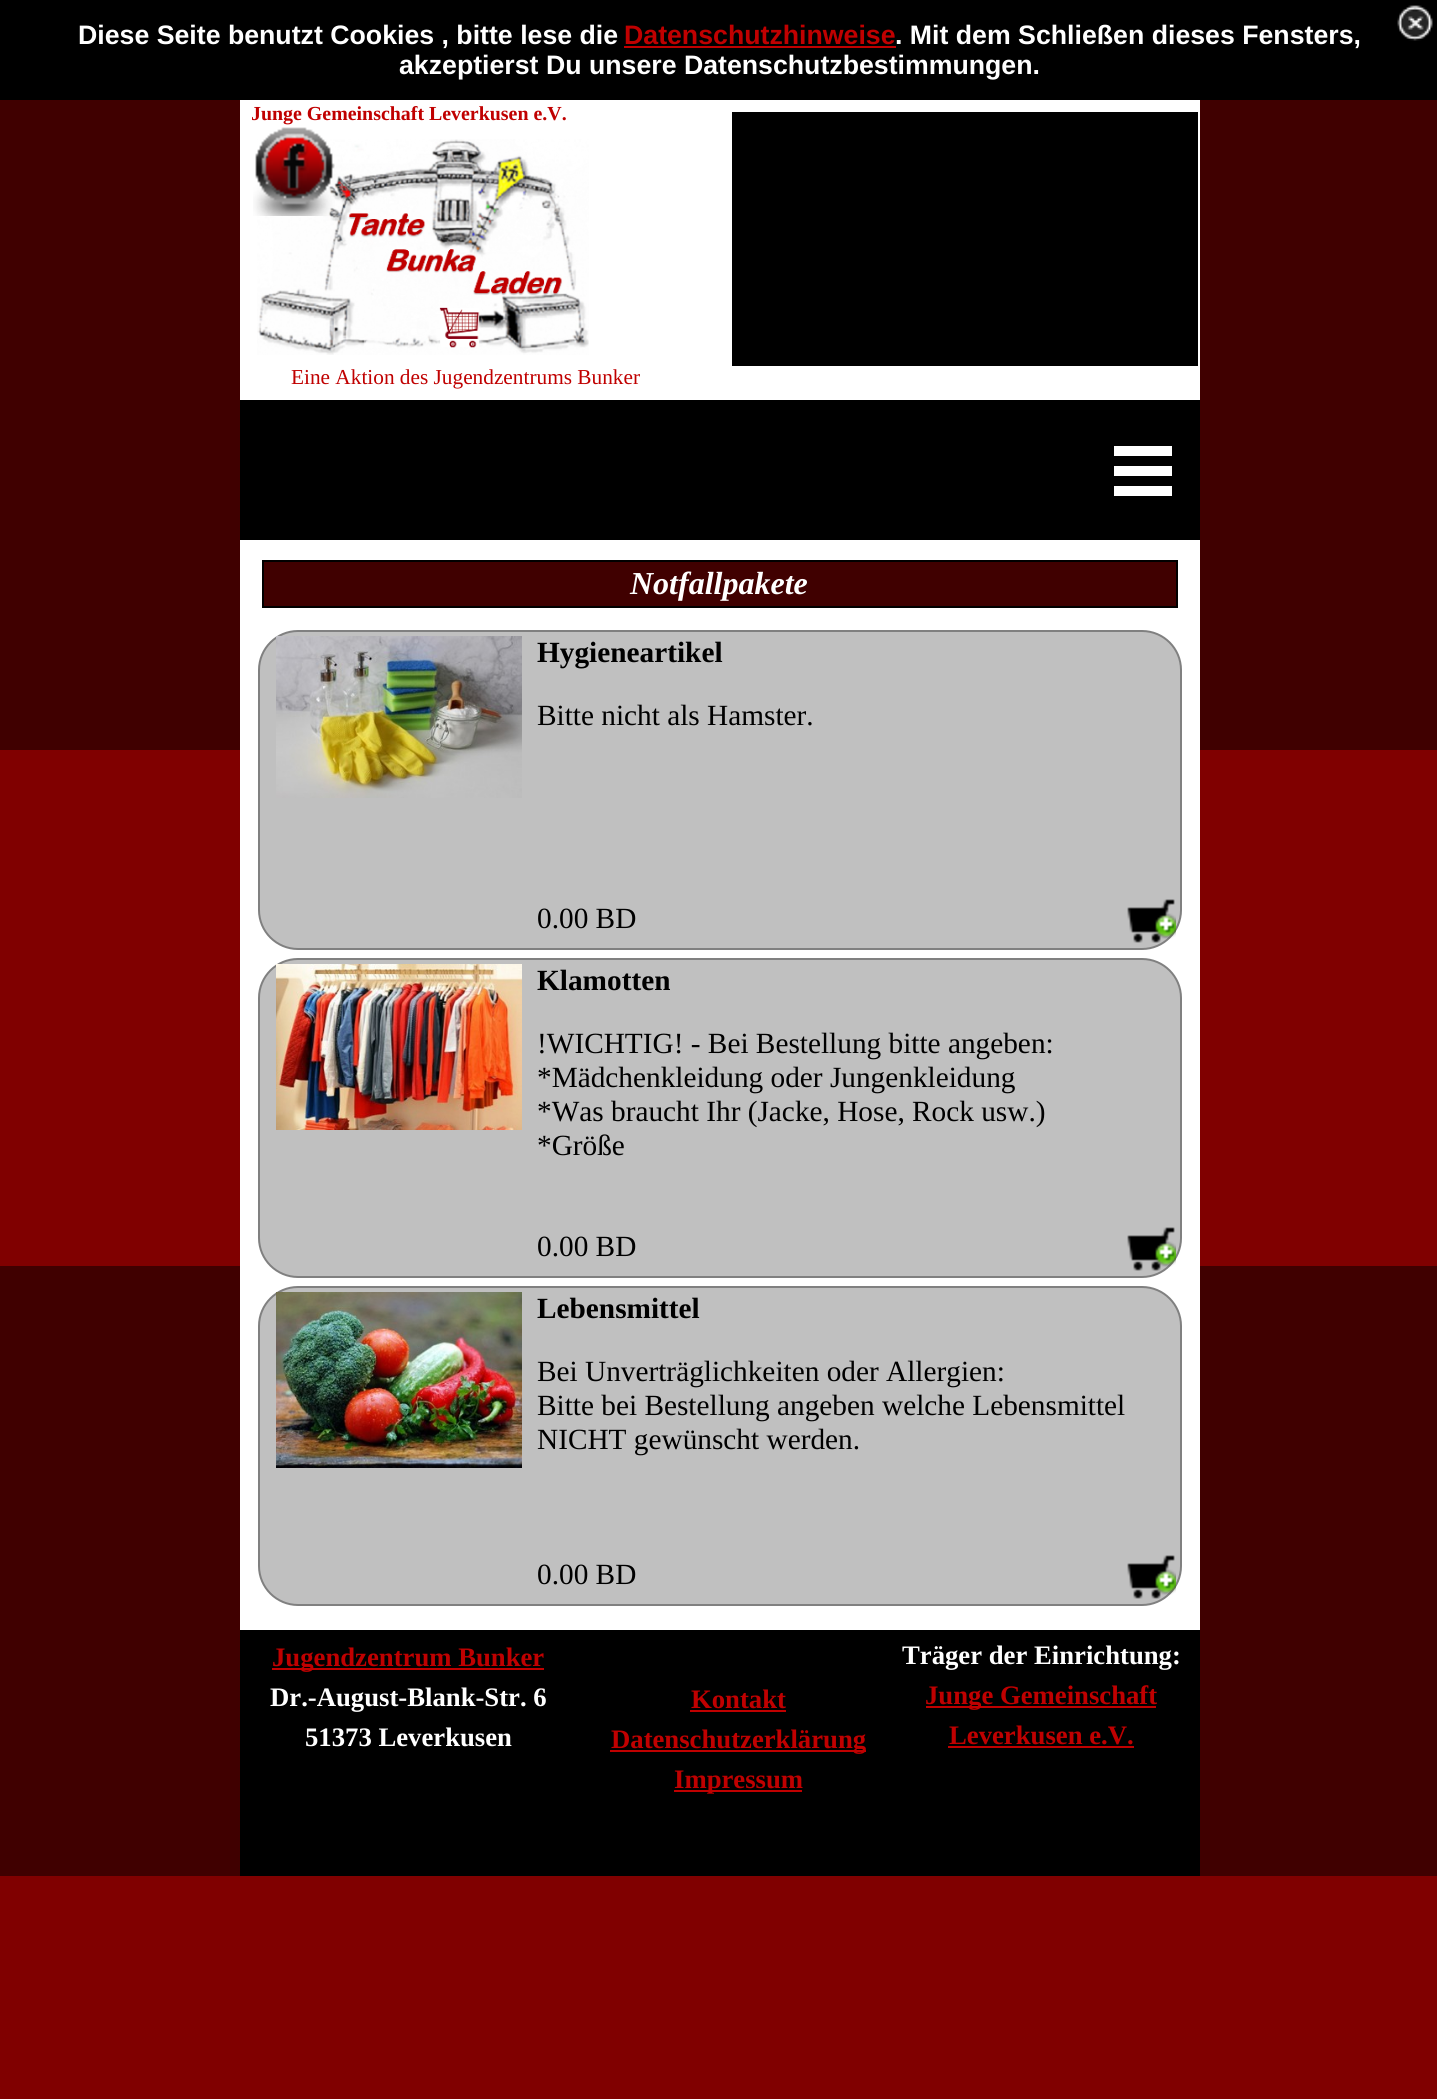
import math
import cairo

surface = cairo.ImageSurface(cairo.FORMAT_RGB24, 1437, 2099)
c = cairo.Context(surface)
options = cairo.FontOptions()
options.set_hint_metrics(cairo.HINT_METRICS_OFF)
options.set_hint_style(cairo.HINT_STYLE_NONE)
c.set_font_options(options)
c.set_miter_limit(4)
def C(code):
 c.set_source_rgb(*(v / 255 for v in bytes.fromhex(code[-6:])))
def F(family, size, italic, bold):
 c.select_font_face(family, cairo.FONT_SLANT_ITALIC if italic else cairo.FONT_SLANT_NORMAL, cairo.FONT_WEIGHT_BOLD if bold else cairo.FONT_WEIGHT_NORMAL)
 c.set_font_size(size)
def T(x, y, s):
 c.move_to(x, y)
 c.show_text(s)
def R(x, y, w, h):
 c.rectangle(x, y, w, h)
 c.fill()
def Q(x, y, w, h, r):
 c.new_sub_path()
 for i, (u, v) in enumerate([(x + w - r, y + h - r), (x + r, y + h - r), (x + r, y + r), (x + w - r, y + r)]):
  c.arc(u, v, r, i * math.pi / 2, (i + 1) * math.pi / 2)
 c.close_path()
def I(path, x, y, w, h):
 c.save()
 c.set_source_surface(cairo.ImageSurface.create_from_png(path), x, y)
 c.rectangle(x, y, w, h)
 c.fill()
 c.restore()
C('800000')
c.paint()
C('000000')
R(0,0,1437,100)
F('Liberation Sans',26.7,0,1)
C('ffffff')
T(78,44,'Diese Seite benutzt Cookies , bitte lese die')
C('c00000')
T(624,44,'Datenschutzhinweise')
C('ffffff')
T(895,44,'. Mit dem Schließen dieses Fensters,')
C('c00000')
R(624,46,272,2)
C('ffffff')
T(399,74,'akzeptierst Du unsere Datenschutzbestimmungen.')
I('1.png',1397,5,36,36)
C('400000')
R(0,100,1437,650)
C('ffffff')
R(240,100,960,300)
c.save()
c.rectangle(252,102,368,32)
c.clip()
F('Liberation Serif',19.9,0,1)
C('c00000')
T(251,120,'Junge Gemeinschaft Leverkusen e.V.')
c.restore()
C('000000')
R(732,112,466,254)
I('3.png',257,139,332,216)
I('2.png',253,127,82,89)
F('Liberation Serif',21.3,0,0)
C('c00000')
T(291,384,'Eine Aktion des Jugendzentrums Bunker')
C('000000')
R(240,400,960,140)
C('ffffff')
R(1114,446,58,10)
R(1114,466,58,10)
R(1114,486,58,10)
C('400000')
R(0,1266,1437,610)
C('ffffff')
R(240,540,960,1090)
C('400000')
c.rectangle(263,561,914,46)
c.fill_preserve()
C('000000')
c.stroke()
F('Liberation Serif',32,1,1)
C('ffffff')
T(630,594,'Notfallpakete')
C('c0c0c0')
Q(259,631,922,318,39)
c.fill_preserve()
C('808080')
c.stroke()
I('4.png',276,636,246,162)
F('Liberation Serif',29.3,0,1)
C('000000')
T(537,662,'Hygieneartikel')
F('Liberation Serif',29.3,0,0)
T(537,725,'Bitte nicht als Hamster.')
T(537,928,'0.00 BD')
I('5.png',1127,899,49,44)
C('c0c0c0')
Q(259,959,922,318,39)
c.fill_preserve()
C('808080')
c.stroke()
I('6.png',276,964,246,166)
F('Liberation Serif',29.3,0,1)
C('000000')
T(537,990,'Klamotten')
F('Liberation Serif',29.3,0,0)
T(537,1053,'!WICHTIG! - Bei Bestellung bitte angeben:')
T(537,1087,'*Mädchenkleidung oder Jungenkleidung')
T(537,1121,'*Was braucht Ihr (Jacke, Hose, Rock usw.)')
T(537,1155,'*Größe')
T(537,1256,'0.00 BD')
I('5.png',1127,1227,49,44)
C('c0c0c0')
Q(259,1287,922,318,39)
c.fill_preserve()
C('808080')
c.stroke()
I('7.png',276,1292,246,176)
F('Liberation Serif',29.3,0,1)
C('000000')
T(537,1318,'Lebensmittel')
F('Liberation Serif',29.3,0,0)
T(537,1381,'Bei Unverträglichkeiten oder Allergien:')
T(537,1415,'Bitte bei Bestellung angeben welche Lebensmittel')
T(537,1449,'NICHT gewünscht werden.')
T(537,1584,'0.00 BD')
I('5.png',1127,1555,49,44)
R(240,1630,960,246)
C('c00000')
R(272,1668,272,2)
F('Liberation Serif',26.7,0,1)
T(272,1666,'Jugendzentrum Bunker')
C('ffffff')
T(270,1706,'Dr.-August-Blank-Str. 6')
T(305,1746,'51373 Leverkusen')
C('c00000')
T(691,1708,'Kontakt')
R(690,1710,96,2)
R(610,1750,256,2)
T(611,1748,'Datenschutzerklärung')
R(674,1790,128,2)
T(674,1788,'Impressum')
C('ffffff')
T(902,1664,'Träger der Einrichtung:')
C('c00000')
R(926,1706,230,2)
T(925,1704,'Junge Gemeinschaft')
T(949,1744,'Leverkusen e.V.')
R(948,1746,186,2)
surface.write_to_png('o.png')
